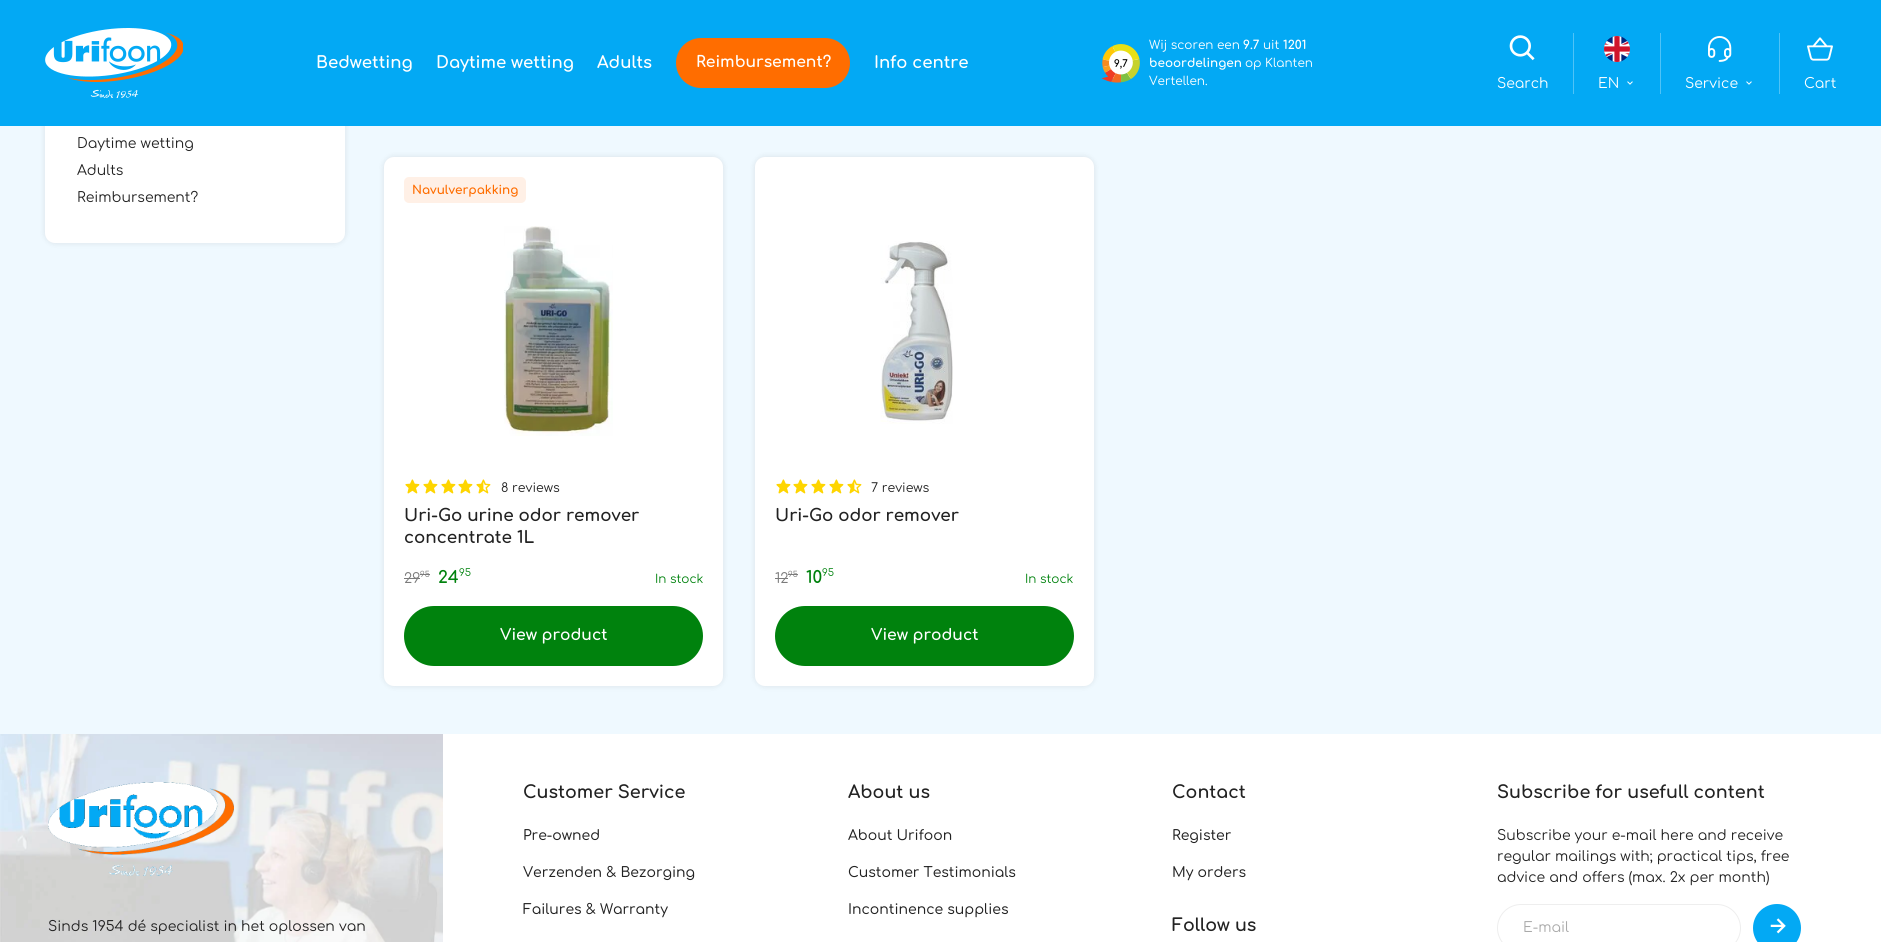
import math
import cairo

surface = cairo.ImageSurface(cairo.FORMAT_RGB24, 1881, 942)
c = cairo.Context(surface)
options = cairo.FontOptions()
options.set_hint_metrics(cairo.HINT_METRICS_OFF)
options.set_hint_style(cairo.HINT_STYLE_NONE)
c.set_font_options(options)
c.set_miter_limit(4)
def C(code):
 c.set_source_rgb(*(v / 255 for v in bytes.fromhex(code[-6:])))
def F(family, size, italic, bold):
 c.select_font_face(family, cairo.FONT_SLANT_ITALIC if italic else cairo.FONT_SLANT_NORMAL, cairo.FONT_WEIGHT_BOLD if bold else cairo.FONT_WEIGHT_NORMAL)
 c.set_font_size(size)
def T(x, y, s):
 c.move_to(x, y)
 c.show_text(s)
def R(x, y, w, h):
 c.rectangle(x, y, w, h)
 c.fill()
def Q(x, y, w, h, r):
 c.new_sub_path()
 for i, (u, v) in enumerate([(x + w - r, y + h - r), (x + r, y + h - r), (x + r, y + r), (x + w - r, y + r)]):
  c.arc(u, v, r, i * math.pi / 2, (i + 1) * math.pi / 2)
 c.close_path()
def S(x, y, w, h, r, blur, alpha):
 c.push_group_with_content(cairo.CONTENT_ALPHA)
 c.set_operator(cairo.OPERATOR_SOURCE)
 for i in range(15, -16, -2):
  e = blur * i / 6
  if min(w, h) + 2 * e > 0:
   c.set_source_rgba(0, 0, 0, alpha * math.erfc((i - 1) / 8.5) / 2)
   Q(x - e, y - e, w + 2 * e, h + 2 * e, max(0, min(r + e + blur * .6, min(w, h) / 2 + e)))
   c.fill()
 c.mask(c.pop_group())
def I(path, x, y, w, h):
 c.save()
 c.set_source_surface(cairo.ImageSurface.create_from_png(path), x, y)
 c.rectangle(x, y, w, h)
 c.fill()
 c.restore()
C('eff9ff')
c.paint()
C('000000')
S(45,33,300,210,10,3,.1)
C('ffffff')
Q(45,33,300,210,10)
c.fill()
C('03a9f4')
R(0,0,1881,126)
I('1.png',45,28,138,70)
F('Comfortaa',16.5,0,1)
C('ffffff')
T(316,68,'Bedwetting')
T(436,68,'Daytime wetting')
T(597,68,'Adults')
C('ff6d00')
Q(676,38,174,50,25)
c.fill()
F('Comfortaa',15.5,0,1)
C('ffffff')
T(696,67,'Reimbursement?')
F('Comfortaa',16.5,0,1)
T(874,68,'Info centre')
c.new_path()
c.arc(1121,63,18,0,2 * math.pi)
c.fill()
I('2.png',1101,44,39,39)
F('Comfortaa',10,0,1)
C('000000')
T(1114,67,'9,7')
F('Comfortaa',12,0,0)
C('ffffff')
T(1149,49,'Wij scoren een')
F('Comfortaa',12,0,1)
T(1243,49,'9.7')
F('Comfortaa',12,0,0)
T(1263,49,'uit')
F('Comfortaa',12,0,1)
T(1283,49,'1201')
T(1149,67,'beoordelingen')
F('Comfortaa',12,0,0)
T(1245,67,'op Klanten')
T(1149,85,'Vertellen.')
I('3.png',1509,35,26,26)
F('Comfortaa',14,0,0)
T(1497,88,'Search')
C('4fc3f7')
R(1573,33,1,61)
I('4.png',1604,36,26,26)
C('ffffff')
T(1598,88,'EN')
I('5.png',1627,81,6,4)
C('4fc3f7')
R(1660,33,1,61)
I('6.png',1708,36,24,26)
C('ffffff')
T(1685,88,'Service')
I('5.png',1746,81,6,4)
C('4fc3f7')
R(1779,33,1,61)
I('7.png',1807,37,26,24)
C('ffffff')
T(1804,88,'Cart')
C('222222')
T(77,148,'Daytime wetting')
T(77,175,'Adults')
T(77,202,'Reimbursement?')
C('000000')
S(384,157,339,529,10,3,.1)
C('ffffff')
Q(384,157,339,529,10)
c.fill()
C('fff0e6')
Q(404,177,122,26,5)
c.fill()
F('Comfortaa',12,0,1)
C('ff6d00')
T(412,194,'Navulverpakking')
I('8.png',504,226,109,210)
I('9.png',405,479,15,15)
I('9.png',423,479,15,15)
I('9.png',441,479,15,15)
I('9.png',458,479,15,15)
I('10.png',476,479,15,15)
F('Comfortaa',12.5,0,0)
C('222222')
T(501,492,'8 reviews')
F('Comfortaa',16.75,0,1)
T(404,521,'Uri-Go urine odor remover')
T(404,543,'concentrate 1L')
F('Comfortaa',14,0,0)
C('7b7b7b')
T(404,583,'29')
R(404,578,16,1)
F('Comfortaa',8,0,0)
T(420,577,'95')
R(420,574,10,1)
F('Comfortaa',16.75,0,1)
C('00820d')
T(438,583,'24')
F('Comfortaa',10,0,0)
T(459,576,'95')
F('Comfortaa',12,0,0)
T(655,583,'In stock')
Q(404,606,299,60,30)
c.fill()
F('Comfortaa',15.5,0,1)
C('ffffff')
T(500,640,'View product')
C('000000')
S(755,157,339,529,10,3,.1)
C('ffffff')
Q(755,157,339,529,10)
c.fill()
I('11.png',880,241,73,183)
I('9.png',776,479,15,15)
I('9.png',793,479,15,15)
I('9.png',811,479,15,15)
I('9.png',829,479,15,15)
I('10.png',847,479,15,15)
F('Comfortaa',12.5,0,0)
C('222222')
T(871,492,'7 reviews')
F('Comfortaa',16.75,0,1)
T(775,521,'Uri-Go odor remover')
F('Comfortaa',14,0,0)
C('7b7b7b')
T(775,583,'12')
R(775,578,13,1)
F('Comfortaa',8,0,0)
T(788,577,'95')
R(788,574,10,1)
F('Comfortaa',16.75,0,1)
C('00820d')
T(806,583,'10')
F('Comfortaa',10,0,0)
T(822,576,'95')
F('Comfortaa',12,0,0)
T(1025,583,'In stock')
Q(775,606,299,60,30)
c.fill()
F('Comfortaa',15.5,0,1)
C('ffffff')
T(871,640,'View product')
R(443,734,1438,208)
I('12.png',0,734,443,208)
I('13.png',48,782,186,94)
F('Comfortaa',14,0,0)
C('222222')
T(48,931,'Sinds 1954 dé specialist in het oplossen van')
F('Comfortaa',17.5,0,1)
T(523,798,'Customer Service')
F('Comfortaa Medium',14,0,0)
T(523,840,'Pre-owned')
T(523,877,'Verzenden & Bezorging')
T(523,914,'Failures & Warranty')
F('Comfortaa',17.5,0,1)
T(848,798,'About us')
F('Comfortaa Medium',14,0,0)
T(848,840,'About Urifoon')
T(848,877,'Customer Testimonials')
T(848,914,'Incontinence supplies')
F('Comfortaa',17.5,0,1)
T(1172,798,'Contact')
F('Comfortaa Medium',14,0,0)
T(1172,840,'Register')
T(1172,877,'My orders')
F('Comfortaa',17.5,0,1)
T(1172,931,'Follow us')
T(1497,798,'Subscribe for usefull content')
F('Comfortaa',14,0,0)
T(1497,840,'Subscribe your e-mail here and receive')
T(1497,861,'regular mailings with; practical tips, free')
T(1497,882,'advice and offers (max. 2x per month)')
Q(1497.5,904.5,243,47,23.5)
C('eeeeee')
c.set_line_width(1)
c.stroke()
C('aaaaaa')
T(1523,932,'E-mail')
C('03a9f4')
c.new_path()
c.arc(1777,928,24,0,2 * math.pi)
c.fill()
I('14.png',1770,918,16,16)
surface.write_to_png('o.png')
